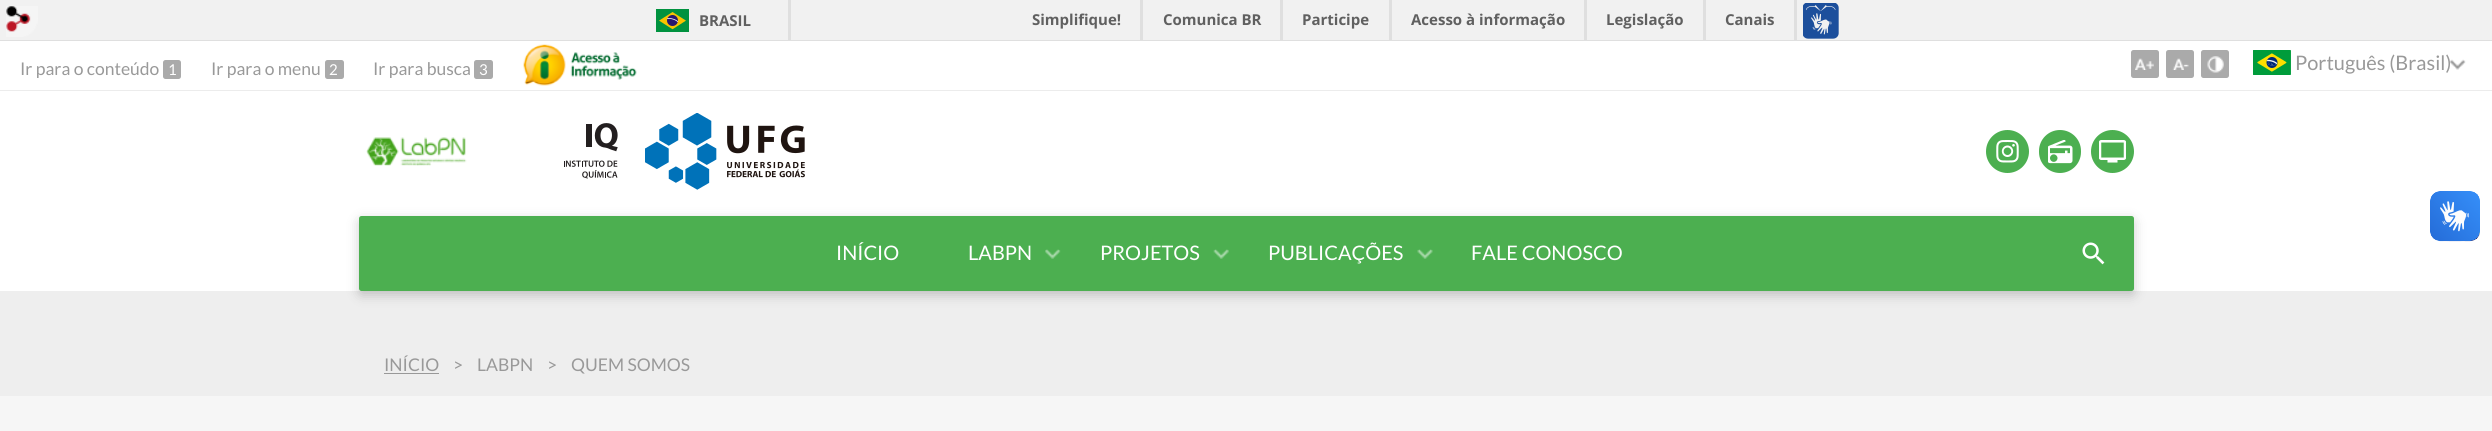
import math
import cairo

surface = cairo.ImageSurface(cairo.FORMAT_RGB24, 2492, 431)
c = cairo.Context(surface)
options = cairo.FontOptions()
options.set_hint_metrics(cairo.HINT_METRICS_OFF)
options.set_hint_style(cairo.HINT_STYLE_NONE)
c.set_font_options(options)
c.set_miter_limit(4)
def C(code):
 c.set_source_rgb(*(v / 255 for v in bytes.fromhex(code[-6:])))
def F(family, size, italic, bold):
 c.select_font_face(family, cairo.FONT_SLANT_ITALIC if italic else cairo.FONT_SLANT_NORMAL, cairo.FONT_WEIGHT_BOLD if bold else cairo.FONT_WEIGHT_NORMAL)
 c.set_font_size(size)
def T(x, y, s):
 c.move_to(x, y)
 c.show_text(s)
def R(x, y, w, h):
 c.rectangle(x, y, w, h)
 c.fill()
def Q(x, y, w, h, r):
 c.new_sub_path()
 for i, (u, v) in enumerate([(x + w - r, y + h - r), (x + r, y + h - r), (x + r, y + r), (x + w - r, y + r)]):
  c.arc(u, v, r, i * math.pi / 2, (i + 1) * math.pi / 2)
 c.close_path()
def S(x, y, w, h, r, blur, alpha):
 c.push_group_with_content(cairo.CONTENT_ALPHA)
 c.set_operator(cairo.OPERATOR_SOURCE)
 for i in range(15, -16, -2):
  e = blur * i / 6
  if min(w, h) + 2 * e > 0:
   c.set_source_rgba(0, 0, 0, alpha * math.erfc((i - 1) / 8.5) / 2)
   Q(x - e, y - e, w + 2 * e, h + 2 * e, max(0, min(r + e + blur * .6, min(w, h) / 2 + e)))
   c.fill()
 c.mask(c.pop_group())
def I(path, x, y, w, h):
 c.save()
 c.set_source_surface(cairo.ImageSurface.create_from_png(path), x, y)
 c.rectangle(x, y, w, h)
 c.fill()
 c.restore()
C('f6f6f6')
c.paint()
C('f1f1f1')
R(0,0,2492,40)
I('1.png',6,6,32,31)
C('dfdfdf')
R(0,40,2492,1)
R(788,0,3,40)
I('2.png',656,9,33,23)
F('Open Sans',15,0,1)
C('606060')
T(699,26,'BRASIL')
C('dfdfdf')
R(1140,0,3,40)
C('606060')
T(1032,25,'Simplifique!')
C('dfdfdf')
R(1280,0,3,40)
C('606060')
T(1163,25,'Comunica BR')
C('dfdfdf')
R(1389,0,3,40)
C('606060')
T(1302,25,'Participe')
C('dfdfdf')
R(1584,0,3,40)
C('606060')
T(1411,25,'Acesso à informação')
C('dfdfdf')
R(1703,0,3,40)
C('606060')
T(1606,25,'Legislação')
C('dfdfdf')
R(1794,0,3,40)
C('606060')
T(1725,25,'Canais')
I('3.png',1803,3,36,36)
C('ffffff')
R(0,41,2492,49)
C('ececec')
R(0,90,2492,1)
F('Lato',17.5,0,0)
C('999999')
T(20,75,'Ir para o conteúdo')
C('aaaaaa')
Q(163,60,18,19,2.5)
c.fill()
F('Lato',15,0,0)
C('ffffff')
T(168,75,'1')
F('Lato',17.5,0,0)
C('999999')
T(211,75,'Ir para o menu')
C('aaaaaa')
Q(325,60,19,19,2.5)
c.fill()
F('Lato',15,0,0)
C('ffffff')
T(329,75,'2')
F('Lato',17.5,0,0)
C('999999')
T(373,75,'Ir para busca')
C('aaaaaa')
Q(474,60,19,19,2.5)
c.fill()
F('Lato',15,0,0)
C('ffffff')
T(479,75,'3')
I('4.png',523,44,114,42)
C('aaaaaa')
Q(2131,50,28,28,2.5)
c.fill()
I('5.png',2135,58,19,12)
Q(2166,50,28,28,2.5)
c.fill()
I('6.png',2172,58,17,12)
Q(2201,50,28,28,2.5)
c.fill()
I('7.png',2207,56,17,17)
I('8.png',2450,59,16,11)
I('9.png',2253,50,38,25)
F('Lato',20,0,0)
C('999999')
T(2295,70,'Português (Brasil)')
C('ffffff')
R(0,91,2492,200)
I('10.png',2430,191,50,51)
I('11.png',2430,191,50,50)
I('12.png',366,137,101,29)
I('13.png',564,123,54,56)
I('14.png',645,113,160,77)
C('4caf50')
c.arc(2007.5,151.5,21.5,0,2 * math.pi)
c.fill()
I('15.png',1996,140,23,23)
Q(2039,130,42,43,21)
c.fill()
I('16.png',2048,140,25,24)
c.arc(2112.5,151.5,21.5,0,2 * math.pi)
c.fill()
I('17.png',2099,140,27,23)
C('eeeeee')
R(0,291,2492,105)
C('000000')
S(359,220,1775,75,2.5,6,.2)
C('4caf50')
Q(359,216,1775,75,2.5)
c.fill()
C('ffffff')
T(836,260,'INÍCIO')
T(968,260,'LABPN')
I('18.png',1045,249,16,10)
T(1100,260,'PROJETOS')
I('19.png',1213,249,16,10)
T(1268,260,'PUBLICAÇÕES')
I('20.png',1417,249,16,10)
T(1471,260,'FALE CONOSCO')
I('21.png',2082,242,23,23)
F('Lato',17.5,0,0)
C('999999')
T(384,371,'INÍCIO')
R(384,373,55,1)
T(453,371,'>')
T(477,371,'LABPN')
T(547,371,'>')
T(571,371,'QUEM SOMOS')
surface.write_to_png('o.png')
